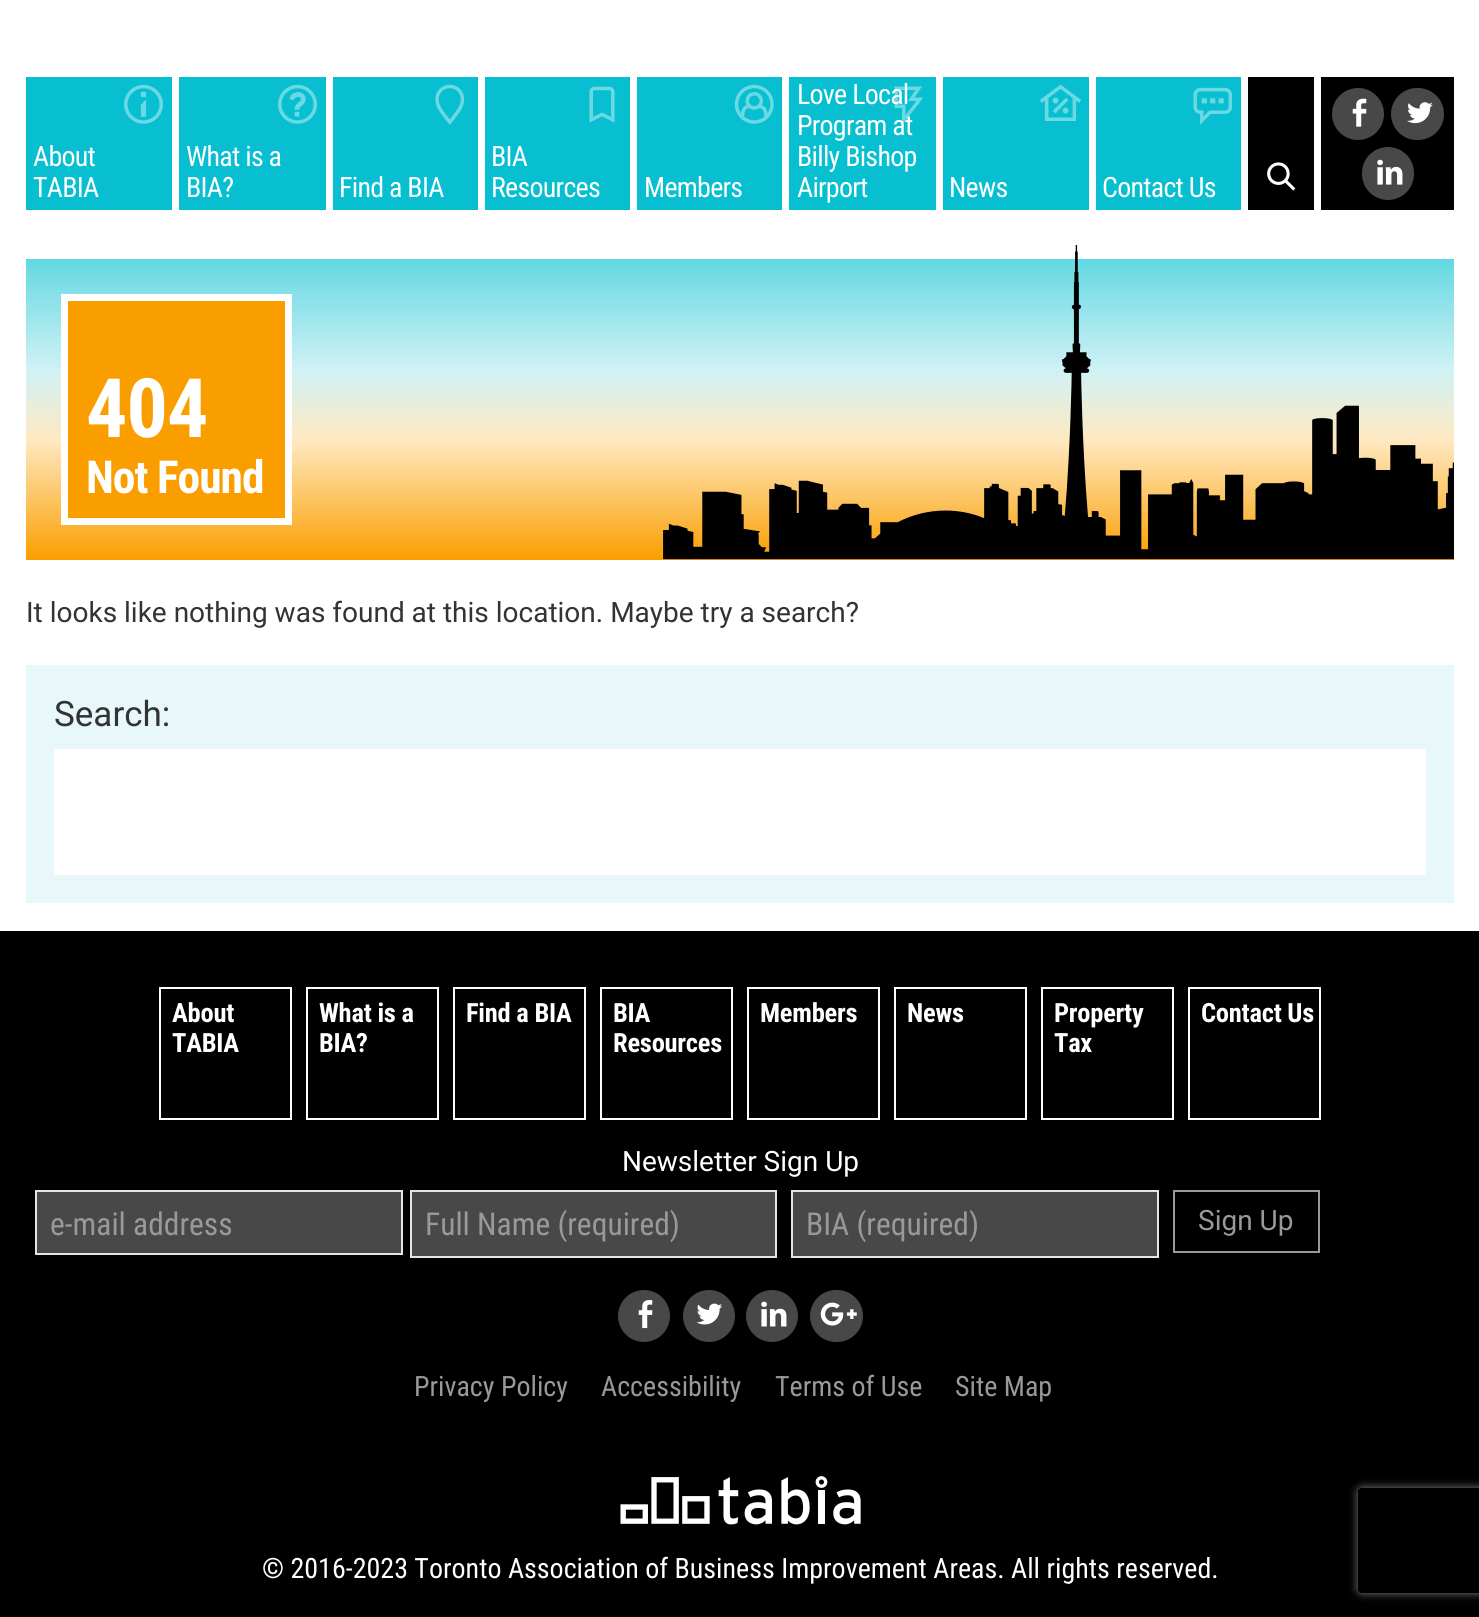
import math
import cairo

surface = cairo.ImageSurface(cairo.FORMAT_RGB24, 1479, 1617)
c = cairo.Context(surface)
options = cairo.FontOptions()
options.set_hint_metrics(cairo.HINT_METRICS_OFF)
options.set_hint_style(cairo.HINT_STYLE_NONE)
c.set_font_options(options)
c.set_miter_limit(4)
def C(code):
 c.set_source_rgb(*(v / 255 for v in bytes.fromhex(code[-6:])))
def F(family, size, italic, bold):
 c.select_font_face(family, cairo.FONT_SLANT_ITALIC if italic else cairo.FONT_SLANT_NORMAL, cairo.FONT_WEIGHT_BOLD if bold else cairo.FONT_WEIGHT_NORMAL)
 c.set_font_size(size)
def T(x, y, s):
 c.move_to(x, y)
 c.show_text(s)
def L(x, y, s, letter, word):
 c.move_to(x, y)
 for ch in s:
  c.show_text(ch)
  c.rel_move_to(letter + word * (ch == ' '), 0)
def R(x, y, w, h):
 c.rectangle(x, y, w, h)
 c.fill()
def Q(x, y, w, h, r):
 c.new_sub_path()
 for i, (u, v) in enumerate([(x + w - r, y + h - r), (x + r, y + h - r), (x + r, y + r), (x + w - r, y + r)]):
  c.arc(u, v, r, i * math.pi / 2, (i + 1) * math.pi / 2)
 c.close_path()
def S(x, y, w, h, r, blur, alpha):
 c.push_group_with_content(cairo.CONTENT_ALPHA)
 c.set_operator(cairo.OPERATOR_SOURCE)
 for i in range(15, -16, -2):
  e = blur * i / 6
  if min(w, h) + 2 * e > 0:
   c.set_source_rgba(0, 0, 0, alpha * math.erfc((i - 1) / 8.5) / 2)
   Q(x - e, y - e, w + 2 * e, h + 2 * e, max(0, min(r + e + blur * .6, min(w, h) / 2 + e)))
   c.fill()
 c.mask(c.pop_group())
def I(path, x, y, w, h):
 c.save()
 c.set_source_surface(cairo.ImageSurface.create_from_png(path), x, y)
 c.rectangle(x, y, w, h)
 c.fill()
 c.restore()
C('ffffff')
c.paint()
C('07bfd0')
R(26,77,146,133)
I('1.png',124,84,39,40)
F('Roboto Condensed',28,0,0)
C('ffffff')
L(33,166,'About',-.75,0)
L(33,197,'TABIA',-.75,0)
C('07bfd0')
R(179,77,147,133)
I('2.png',278,84,39,40)
C('ffffff')
L(186,166,'What is a',-.75,0)
L(186,197,'BIA?',-.75,0)
C('07bfd0')
R(333,77,145,133)
I('3.png',435,84,30,41)
C('ffffff')
L(339,197,'Find a BIA',-.75,0)
C('07bfd0')
R(485,77,145,133)
I('4.png',589,86,26,37)
C('ffffff')
L(491,166,'BIA',-.75,0)
L(491,197,'Resources',-.75,0)
C('07bfd0')
R(637,77,145,133)
I('5.png',734,84,40,40)
C('ffffff')
L(644,197,'Members',-.75,0)
C('07bfd0')
R(789,77,147,133)
C('ffffff')
L(797,104,'Love Local',-.75,0)
L(797,135,'Program at',-.75,0)
L(797,166,'Billy Bishop',-.75,0)
L(797,197,'Airport',-.75,0)
c.set_source_rgba(1,1,1,0.4)
c.new_path()
c.move_to(923.5,97.5)
c.line_to(914.5,97.5)
c.line_to(922,86.5)
c.line_to(894.5,86.5)
c.line_to(894.5,108)
c.line_to(902,108)
c.line_to(902,125)
c.close_path()
c.move_to(898,104.5)
c.line_to(898,90)
c.line_to(915.5,90)
c.line_to(908,101)
c.line_to(916.5,101)
c.line_to(905.5,115)
c.line_to(905.5,104.5)
c.close_path()
c.fill()
C('07bfd0')
R(943,77,146,133)
I('6.png',1039,84,43,37)
C('ffffff')
L(949,197,'News',-.75,0)
C('07bfd0')
R(1096,77,145,133)
I('7.png',1193,87,40,38)
C('ffffff')
L(1102,197,'Contact Us',-.75,0)
C('000000')
R(1248,77,66,133)
I('8.png',1267,162,29,29)
R(1321,77,133,133)
C('484849')
c.arc(1358,114,26,0,2 * math.pi)
c.fill()
I('9.png',1352,98,15,29)
Q(1391,88,53,52,26)
c.fill()
I('10.png',1407,102,26,22)
Q(1362,147,52,53,26)
c.fill()
I('11.png',1377,159,26,26)
gradient = cairo.LinearGradient(740,259,740,560)
gradient.add_color_stop_rgba(0,0.388,0.847,0.886,1)
gradient.add_color_stop_rgba(.37,0.816,0.949,0.961,1)
gradient.add_color_stop_rgba(.6,1,0.914,0.761,1)
gradient.add_color_stop_rgba(1,0.98,0.62,0,1)
c.set_source(gradient)
R(26,259,1428,301)
I('12.png',663,245,791,315)
C('fa9e00')
c.rectangle(64.5,297.5,224,224)
c.fill_preserve()
C('ffffff')
c.set_line_width(7)
c.stroke()
F('Roboto Condensed',82,0,1)
L(86,437,'404',-1,0)
F('Roboto Condensed',45.5,0,1)
L(86,493,'Not Found',-1,0)
F('Roboto',28,0,0)
C('333333')
T(26,622,'It looks like nothing was found at this location. Maybe try a search?')
C('e8f8fa')
R(26,665,1428,238)
F('Roboto',35,0,0)
C('333333')
T(54,726,'Search:')
C('ffffff')
R(54,749,1372,126)
C('000000')
R(0,931,1479,686)
c.rectangle(160,988,131,131)
C('ffffff')
c.set_line_width(2)
c.stroke()
F('Roboto Condensed',26.5,0,1)
L(172,1022,'About',-.25,0)
L(172,1052,'TABIA',-.25,0)
c.rectangle(307,988,131,131)
c.stroke()
L(319,1022,'What is a',-.25,0)
L(319,1052,'BIA?',-.25,0)
c.rectangle(454,988,131,131)
c.stroke()
L(466,1022,'Find a BIA',-.25,0)
c.rectangle(601,988,131,131)
c.stroke()
L(613,1022,'BIA',-.25,0)
L(613,1052,'Resources',-.25,0)
c.rectangle(748,988,131,131)
c.stroke()
L(760,1022,'Members',-.25,0)
c.rectangle(895,988,131,131)
c.stroke()
L(907,1022,'News',-.25,0)
c.rectangle(1042,988,131,131)
c.stroke()
L(1054,1022,'Property',-.25,0)
L(1054,1052,'Tax',-.25,0)
c.rectangle(1189,988,131,131)
c.stroke()
L(1201,1022,'Contact Us',-.25,0)
F('Roboto',28,0,0)
T(622,1171,'Newsletter Sign Up')
C('484849')
c.rectangle(36,1191,366,63)
c.fill_preserve()
C('e5e5e5')
c.stroke()
F('Roboto Condensed',31.5,0,0)
C('999999')
T(50,1235,'e-mail address')
C('484849')
c.rectangle(411,1191,365,66)
c.fill_preserve()
C('e5e5e5')
c.stroke()
C('999999')
T(425,1235,'Full Name (required)')
C('484849')
c.rectangle(792,1191,366,66)
c.fill_preserve()
C('e5e5e5')
c.stroke()
C('999999')
T(806,1235,'BIA (required)')
c.rectangle(1174,1191,145,61)
c.stroke()
F('Roboto',28,0,0)
T(1198,1230,'Sign Up')
C('484849')
c.new_path()
c.arc(644,1316,26,0,2 * math.pi)
c.fill()
I('13.png',638,1300,15,29)
c.arc(709,1316,26,0,2 * math.pi)
c.fill()
I('14.png',696,1303,27,22)
c.arc(772,1316,26,0,2 * math.pi)
c.fill()
I('15.png',761,1301,26,26)
Q(810,1290,53,52,26)
c.fill()
I('16.png',820,1302,37,24)
F('Roboto Condensed',28,0,0)
C('999999')
T(414,1396,'Privacy Policy')
T(601,1396,'Accessibility')
T(775,1396,'Terms of Use')
T(955,1396,'Site Map')
I('17.png',620,1476,241,49)
C('ffffff')
T(262,1578,'© 2016-2023 Toronto Association of Business Improvement Areas. All rights reserved.')
c.save()
c.set_fill_rule(cairo.FILL_RULE_EVEN_ODD)
c.new_path()
c.move_to(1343,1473)
c.line_to(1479,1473)
c.line_to(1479,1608)
c.line_to(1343,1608)
c.close_path()
c.move_to(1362,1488)
c.line_to(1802,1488)
c.curve_to(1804,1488,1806,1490,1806,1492)
c.line_to(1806,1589)
c.curve_to(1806,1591,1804,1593,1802,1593)
c.line_to(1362,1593)
c.curve_to(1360,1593,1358,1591,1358,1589)
c.line_to(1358,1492)
c.curve_to(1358,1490,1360,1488,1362,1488)
c.close_path()
c.clip()
C('808080')
S(1358,1488,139,105,4,4.5,1)
c.restore()
surface.write_to_png('o.png')
